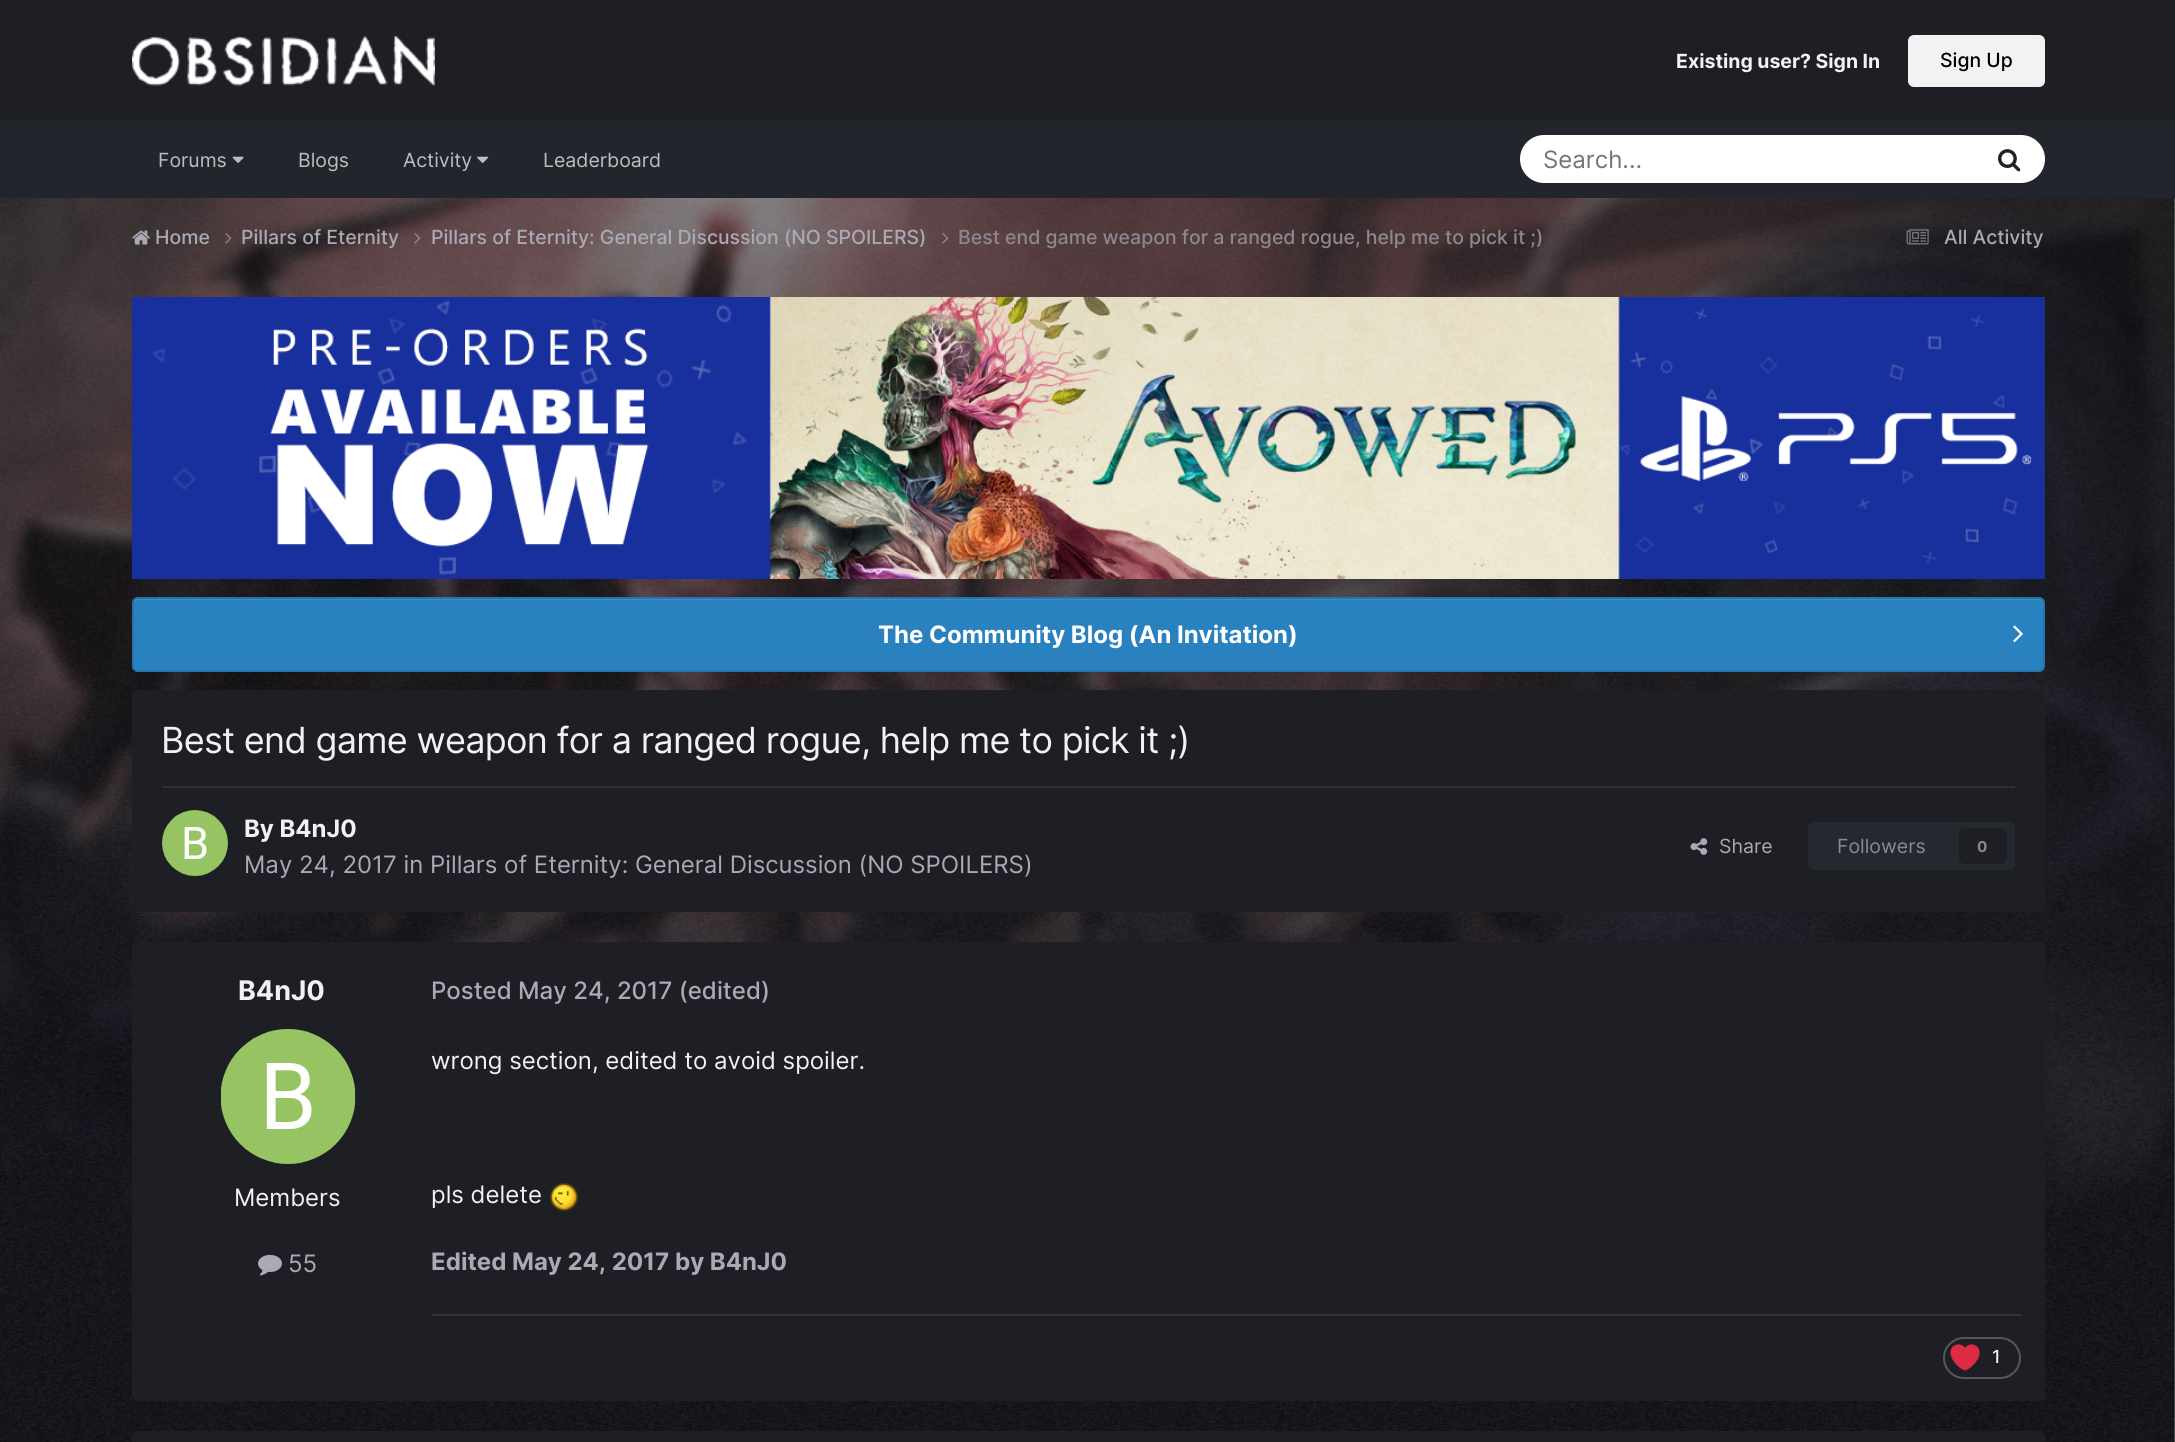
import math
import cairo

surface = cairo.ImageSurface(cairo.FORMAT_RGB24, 2175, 1442)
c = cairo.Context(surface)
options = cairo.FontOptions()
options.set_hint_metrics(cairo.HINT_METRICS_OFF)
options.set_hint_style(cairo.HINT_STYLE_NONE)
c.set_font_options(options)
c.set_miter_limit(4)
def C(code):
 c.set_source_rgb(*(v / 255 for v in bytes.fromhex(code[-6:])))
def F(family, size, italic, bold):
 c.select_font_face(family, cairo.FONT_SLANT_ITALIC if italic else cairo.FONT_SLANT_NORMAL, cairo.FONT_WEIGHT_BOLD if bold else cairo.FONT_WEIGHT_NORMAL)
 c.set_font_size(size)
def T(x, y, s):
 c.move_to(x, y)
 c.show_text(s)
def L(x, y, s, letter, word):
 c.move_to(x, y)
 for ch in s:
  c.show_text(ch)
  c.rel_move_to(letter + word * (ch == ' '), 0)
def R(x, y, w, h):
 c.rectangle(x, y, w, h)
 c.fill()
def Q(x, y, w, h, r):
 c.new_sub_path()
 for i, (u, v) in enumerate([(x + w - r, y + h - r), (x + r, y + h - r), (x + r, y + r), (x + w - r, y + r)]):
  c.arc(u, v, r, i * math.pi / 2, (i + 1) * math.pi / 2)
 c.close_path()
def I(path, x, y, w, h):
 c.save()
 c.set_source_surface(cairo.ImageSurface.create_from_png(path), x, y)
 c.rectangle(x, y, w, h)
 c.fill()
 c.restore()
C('ffffff')
c.paint()
C('1d1f25')
R(0,0,2175,120)
I('1.png',132,36,303,50)
F('Inter',19.5,0,1)
C('f2f2f2')
T(1676,68,'Existing user? Sign In')
Q(1908,35,137,52,6)
c.fill()
F('Inter Medium',19.5,0,0)
C('000000')
T(1940,67,'Sign Up')
C('23252c')
R(0,120,2175,78)
F('Inter',19.5,0,0)
C('bdbec0')
T(158,167,'Forums')
I('2.png',232,156,12,7)
T(298,167,'Blogs')
T(403,167,'Activity')
I('3.png',477,156,12,7)
T(543,167,'Leaderboard')
C('ffffff')
Q(1520,135,525,48,24)
c.fill()
F('Inter',24,0,0)
C('757575')
T(1543,168,'Search...')
I('4.png',1998,149,23,23)
I('5.png',0,198,2175,1244)
I('6.png',132,230,18,15)
F('Inter Medium',19.5,0,0)
C('aaaab6')
T(155,244,'Home')
I('7.png',225,233,7,11)
T(241,244,'Pillars of Eternity')
I('8.png',414,233,7,11)
T(431,244,'Pillars of Eternity: General Discussion (NO SPOILERS)')
I('9.png',942,233,7,11)
C('8d8790')
T(958,244,'Best end game weapon for a ranged rogue, help me to pick it ;)')
I('10.png',1906,229,23,16)
C('aaaab6')
T(1944,244,'All Activity')
C('2e3039')
R(2044,297,1,282)
I('11.png',132,297,1913,282)
C('2981bf')
Q(132,597,1913,75,6)
c.fill()
C('3e8ec5')
c.new_path()
c.move_to(138,600)
c.line_to(2038,600)
c.curve_to(2041,600,2043,602,2043,604)
c.curve_to(2043,601,2041,599,2038,599)
c.line_to(139,599)
c.curve_to(136,599,134,601,134,604)
c.curve_to(134,602,136,600,138,600)
c.close_path()
c.fill()
Q(133,598,1911,73,5)
c.set_source_rgba(0,0,0,0.1)
c.stroke()
F('Inter',24,0,1)
C('ffffff')
T(878,643,'The Community Blog (An Invitation)')
I('12.png',2013,625,10,18)
C('1d1f25')
Q(132,690,1913,222,6)
c.fill()
F('Inter',36,0,0)
C('f2f2f2')
L(161,753,'Best end game weapon for a ranged rogue, help me to pick it ;)',-.72,0)
C('2e3035')
R(162,786,1853,2)
I('13.png',162,810,66,66)
F('Inter',24,0,1)
C('f2f2f2')
T(244,837,'By B4nJ0')
F('Inter',24,0,0)
C('aaaab6')
T(244,873,'May 24, 2017 in Pillars of Eternity: General Discussion (NO SPOILERS)')
I('14.png',1690,838,18,17)
F('Inter',19.5,0,0)
T(1719,853,'Share')
C('26282f')
Q(1808,822,207,48,6)
c.fill()
C('8d8790')
T(1837,853,'Followers')
C('1d1f25')
Q(1959,828,48,36,6)
c.fill()
F('Inter',15,0,1)
C('8d8790')
T(1977,852,'0')
C('1d1f25')
Q(132,942,1913,459,6)
c.fill()
F('Inter',27,0,1)
C('f2f2f2')
T(238,1000,'B4nJ0')
I('15.png',221,1029,135,135)
F('Inter',24,0,0)
T(234,1206,'Members')
I('16.png',258,1254,24,22)
C('aaaab6')
T(288,1272,'55')
F('Inter Medium',24,0,0)
T(431,999,'Posted May 24, 2017 (edited)')
F('Inter',24,0,0)
C('f2f2f2')
T(431,1069,'wrong section, edited to avoid spoiler.')
T(431,1203,'pls delete')
I('17.png',550,1183,28,28)
F('Inter',24,0,1)
C('aaaab6')
T(431,1270,'Edited May 24, 2017 by B4nJ0')
C('32343a')
R(432,1314,1589,2)
Q(1944,1338,76,40,20)
C('55575f')
c.stroke()
I('18.png',1950,1344,30,27)
F('Inter Medium',18,0,0)
C('f2f2f2')
T(1992,1363,'1')
C('1d1f25')
Q(132,1431,1913,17,6)
c.fill()
surface.write_to_png('o.png')
